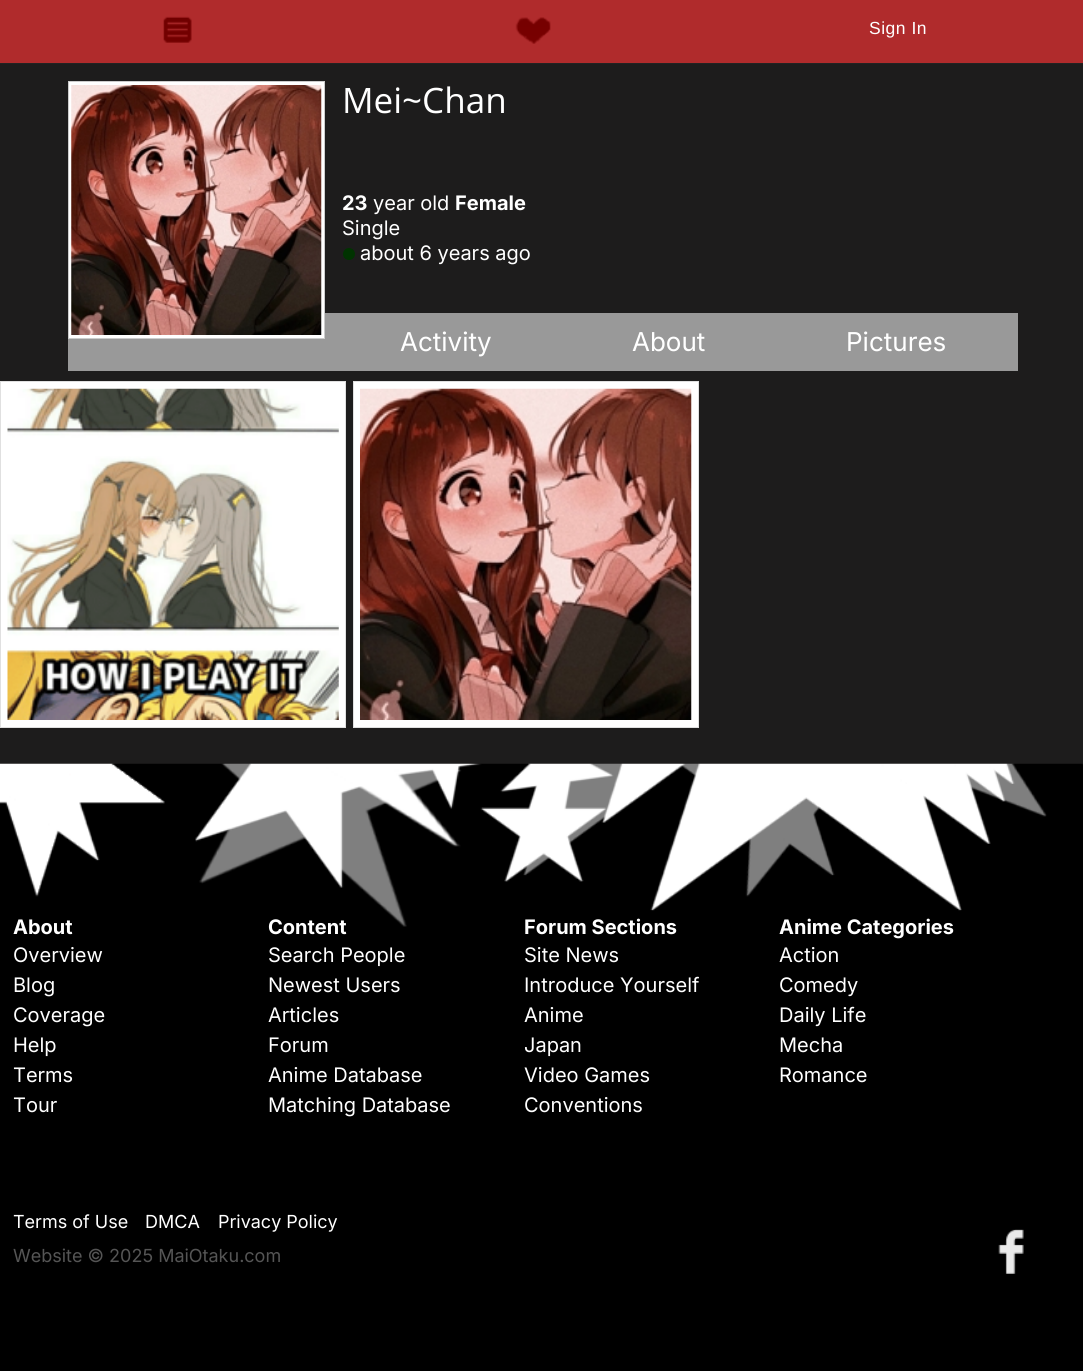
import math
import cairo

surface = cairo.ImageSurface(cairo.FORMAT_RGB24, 1083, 1371)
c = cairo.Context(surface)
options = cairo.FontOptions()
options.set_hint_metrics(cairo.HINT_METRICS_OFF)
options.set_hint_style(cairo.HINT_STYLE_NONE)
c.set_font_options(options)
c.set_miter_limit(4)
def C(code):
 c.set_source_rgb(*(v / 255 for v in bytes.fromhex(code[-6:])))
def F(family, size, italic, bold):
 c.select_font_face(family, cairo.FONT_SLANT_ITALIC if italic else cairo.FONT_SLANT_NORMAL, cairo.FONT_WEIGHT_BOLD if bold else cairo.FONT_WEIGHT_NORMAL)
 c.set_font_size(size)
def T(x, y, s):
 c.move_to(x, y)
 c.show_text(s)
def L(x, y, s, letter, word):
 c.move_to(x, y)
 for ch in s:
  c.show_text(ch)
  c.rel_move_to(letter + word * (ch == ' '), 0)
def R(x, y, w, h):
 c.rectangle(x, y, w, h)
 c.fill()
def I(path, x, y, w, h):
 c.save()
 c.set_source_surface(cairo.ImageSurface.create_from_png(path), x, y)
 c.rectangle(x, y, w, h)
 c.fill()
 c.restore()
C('000000')
c.paint()
C('b02b2c')
R(0,0,1083,63)
C('222222')
R(0,63,1083,1)
I('1.png',163,16,29,27)
I('2.png',515,17,36,27)
F('Liberation Sans',17.5,0,0)
C('ffffff')
L(869,34,'Sign In',.5,0)
C('1d1c1c')
R(0,64,1083,700)
C('999999')
R(68,313,950,58)
C('ffffff')
c.rectangle(68.5,81.5,256,257)
c.fill_preserve()
C('cccccc')
c.set_line_width(1)
c.stroke()
I('3.png',71,85,251,250)
F('Open Sans',35,0,0)
C('ffffff')
T(342,113,'Mei~Chan')
F('Inter',20,0,1)
T(342,210,'23')
F('Inter',20,0,0)
T(373,210,'year old')
F('Inter',20,0,1)
T(455,210,'Female')
F('Inter',20,0,0)
T(342,235,'Single')
C('003300')
c.new_path()
c.arc(349,254,6,0,2 * math.pi)
c.fill()
C('ffffff')
T(360,260,'about 6 years ago')
F('Inter',26,0,0)
T(400,351,'Activity')
T(632,351,'About')
T(846,351,'Pictures')
c.rectangle(.5,381.5,345,346)
c.fill_preserve()
C('e0e0e0')
c.stroke()
I('4.png',7,388,332,332)
C('ffffff')
c.rectangle(353.5,381.5,345,346)
c.fill_preserve()
C('e0e0e0')
c.stroke()
I('5.png',360,388,332,332)
I('6.png',0,763,1083,164)
F('Inter',20,0,1)
C('ffffff')
T(13,934,'About')
F('Inter',20,0,0)
T(13,962,'Overview')
T(13,992,'Blog')
T(13,1022,'Coverage')
T(13,1052,'Help')
T(13,1082,'Terms')
T(13,1112,'Tour')
F('Inter',20,0,1)
T(268,934,'Content')
F('Inter',20,0,0)
T(268,962,'Search People')
T(268,992,'Newest Users')
T(268,1022,'Articles')
T(268,1052,'Forum')
T(268,1082,'Anime Database')
T(268,1112,'Matching Database')
F('Inter',20,0,1)
T(524,934,'Forum Sections')
F('Inter',20,0,0)
T(524,962,'Site News')
T(524,992,'Introduce Yourself')
T(524,1022,'Anime')
T(524,1052,'Japan')
T(524,1082,'Video Games')
T(524,1112,'Conventions')
F('Inter',20,0,1)
T(779,934,'Anime Categories')
F('Inter',20,0,0)
T(779,962,'Action')
T(779,992,'Comedy')
T(779,1022,'Daily Life')
T(779,1052,'Mecha')
T(779,1082,'Romance')
F('Inter',18,0,0)
T(13,1228,'Terms of Use')
T(145,1228,'DMCA')
T(218,1228,'Privacy Policy')
C('555555')
T(13,1262,'Website © 2025 MaiOtaku.com')
I('7.png',998,1229,26,45)
surface.write_to_png('o.png')
